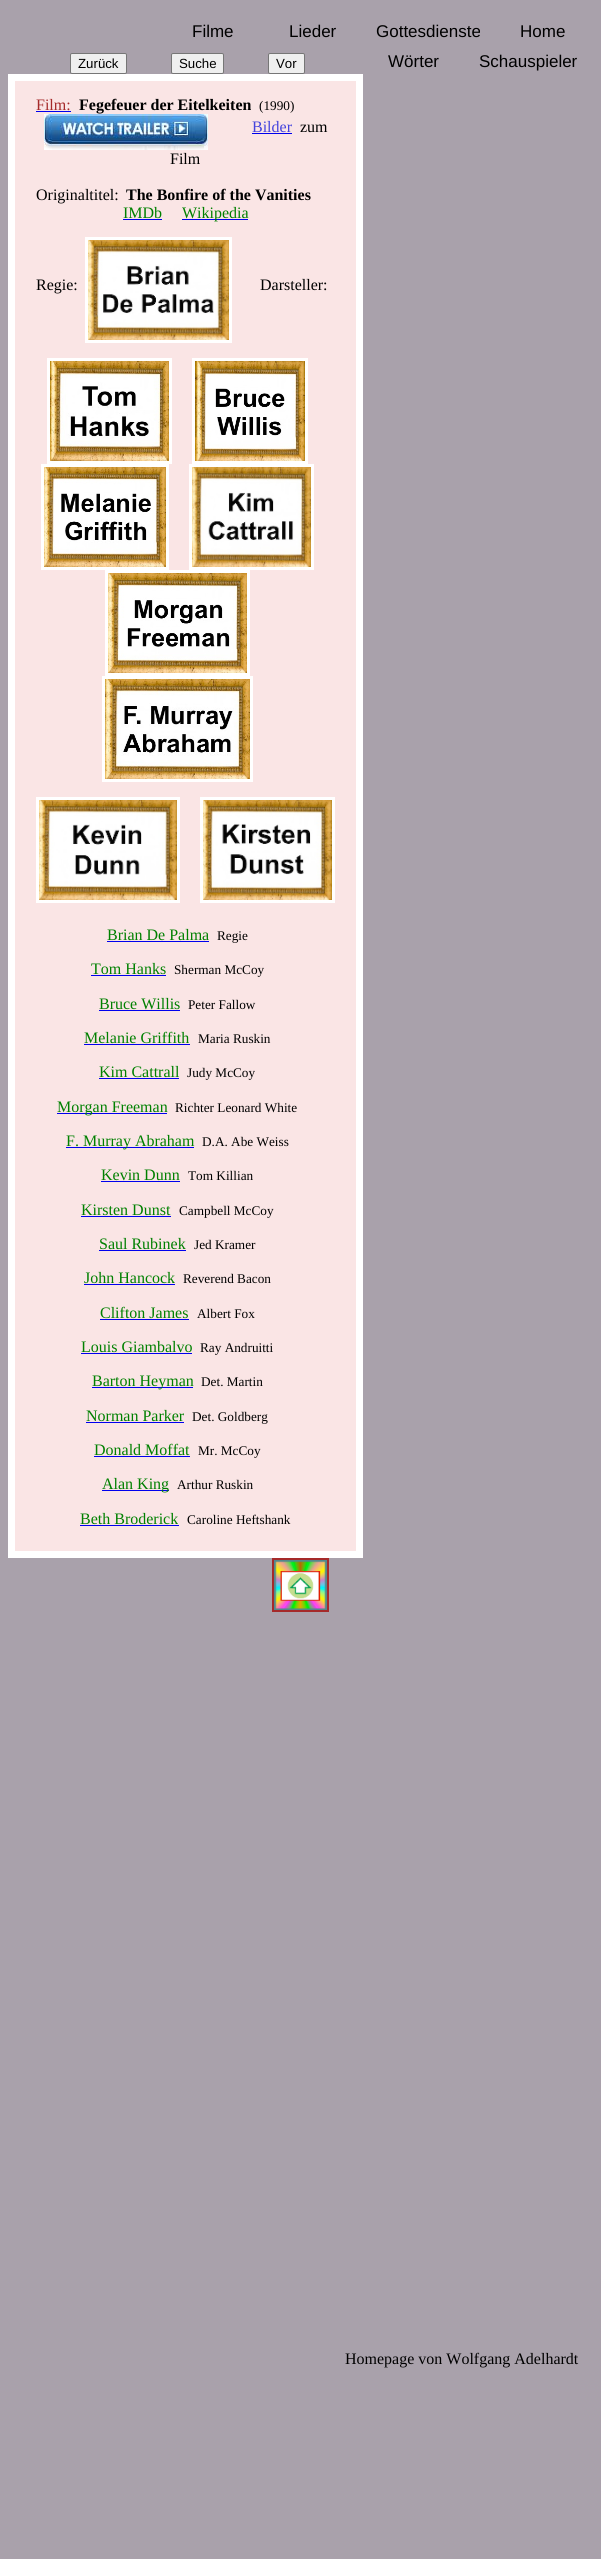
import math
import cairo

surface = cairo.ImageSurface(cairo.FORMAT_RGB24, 601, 2559)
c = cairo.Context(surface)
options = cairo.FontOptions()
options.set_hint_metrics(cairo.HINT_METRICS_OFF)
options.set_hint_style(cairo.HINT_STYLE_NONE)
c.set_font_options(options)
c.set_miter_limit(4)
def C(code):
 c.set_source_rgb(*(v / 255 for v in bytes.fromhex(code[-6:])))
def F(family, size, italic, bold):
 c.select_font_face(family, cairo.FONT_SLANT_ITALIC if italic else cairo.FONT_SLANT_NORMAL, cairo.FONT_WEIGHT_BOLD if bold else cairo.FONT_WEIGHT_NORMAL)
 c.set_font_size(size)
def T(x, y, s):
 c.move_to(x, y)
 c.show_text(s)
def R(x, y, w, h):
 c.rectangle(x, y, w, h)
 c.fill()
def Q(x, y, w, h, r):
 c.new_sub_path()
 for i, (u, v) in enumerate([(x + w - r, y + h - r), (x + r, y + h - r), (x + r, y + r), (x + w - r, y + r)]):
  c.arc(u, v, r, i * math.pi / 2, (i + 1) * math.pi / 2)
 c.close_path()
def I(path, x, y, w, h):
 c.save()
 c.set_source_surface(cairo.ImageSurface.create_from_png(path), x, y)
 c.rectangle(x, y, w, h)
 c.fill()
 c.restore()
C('a9a1ab')
c.paint()
F('Liberation Sans',17,0,0)
C('000000')
T(192,37,'Filme')
T(289,37,'Lieder')
T(376,37,'Gottesdienste')
T(520,37,'Home')
T(388,67,'Wörter')
T(479,67,'Schauspieler')
C('efefef')
Q(70.5,53.5,56,20,1.5)
c.fill_preserve()
C('767676')
c.set_line_width(1)
c.stroke()
F('Liberation Sans',13.25,0,0)
C('000000')
T(78,68,'Zurück')
C('efefef')
Q(171.5,53.5,52,20,1.5)
c.fill_preserve()
C('767676')
c.stroke()
C('000000')
T(179,68,'Suche')
C('efefef')
Q(268.5,53.5,36,20,1.5)
c.fill_preserve()
C('767676')
c.stroke()
C('000000')
T(276,68,'Vor')
C('ffffff')
R(8,74,355,1484)
C('fae5e5')
R(15,81,341,1470)
F('Liberation Serif',16,0,0)
C('a52a2a')
T(36,110,'Film:')
C('0000ee')
R(36,111,35,1)
F('Liberation Serif',16,0,1)
C('000000')
T(79,110,'Fegefeuer der Eitelkeiten')
F('Liberation Serif',13.25,0,0)
T(259,110,'(1990)')
I('1.png',44,114,164,36)
F('Liberation Serif',16,0,0)
C('4444dd')
T(252,132,'Bilder')
C('0000ee')
R(252,133,40,1)
C('000000')
T(300,132,'zum')
T(170,164,'Film')
T(36,200,'Originaltitel:')
F('Liberation Serif',16,0,1)
T(126,200,'The Bonfire of the Vanities')
F('Liberation Serif',16,0,0)
C('008000')
T(123,218,'IMDb')
C('0000ee')
R(123,219,39,1)
R(182,219,66,1)
C('008000')
T(182,218,'Wikipedia')
c.rectangle(86.5,238.5,144,103)
C('ffffff')
c.set_line_width(3)
c.stroke()
C('000000')
T(36,290,'Regie:')
I('2.png',88,240,141,100)
T(260,290,'Darsteller:')
c.rectangle(48.5,359.5,122,103)
C('ffffff')
c.stroke()
c.rectangle(193.5,359.5,113,103)
c.stroke()
I('3.png',50,361,119,100)
I('4.png',195,361,110,100)
c.rectangle(42.5,465.5,125,103)
c.stroke()
c.rectangle(190.5,465.5,122,103)
c.stroke()
I('5.png',44,467,122,100)
I('6.png',192,467,119,100)
c.rectangle(106.5,571.5,142,103)
c.stroke()
I('7.png',108,573,139,100)
c.rectangle(103.5,677.5,148,103)
c.stroke()
I('8.png',105,679,145,100)
c.rectangle(37.5,798.5,141,103)
c.stroke()
c.rectangle(201.5,798.5,132,103)
c.stroke()
I('9.png',39,800,138,100)
I('10.png',203,800,129,100)
C('008000')
T(107,940,'Brian De Palma')
C('0000ee')
R(107,941,102,1)
F('Liberation Serif',13.25,0,0)
C('000000')
T(217,940,'Regie')
F('Liberation Serif',16,0,0)
C('008000')
T(91,974,'Tom Hanks')
C('0000ee')
R(91,975,75,1)
F('Liberation Serif',13.25,0,0)
C('000000')
T(174,974,'Sherman McCoy')
F('Liberation Serif',16,0,0)
C('008000')
T(99,1009,'Bruce Willis')
C('0000ee')
R(99,1010,81,1)
F('Liberation Serif',13.25,0,0)
C('000000')
T(188,1009,'Peter Fallow')
F('Liberation Serif',16,0,0)
C('008000')
T(84,1043,'Melanie Griffith')
C('0000ee')
R(84,1044,106,1)
F('Liberation Serif',13.25,0,0)
C('000000')
T(198,1043,'Maria Ruskin')
F('Liberation Serif',16,0,0)
C('008000')
T(99,1077,'Kim Cattrall')
C('0000ee')
R(99,1078,80,1)
F('Liberation Serif',13.25,0,0)
C('000000')
T(187,1077,'Judy McCoy')
C('0000ee')
R(57,1113,110,1)
F('Liberation Serif',16,0,0)
C('008000')
T(57,1112,'Morgan Freeman')
F('Liberation Serif',13.25,0,0)
C('000000')
T(175,1112,'Richter Leonard White')
C('0000ee')
R(66,1147,128,1)
F('Liberation Serif',16,0,0)
C('008000')
T(66,1146,'F. Murray Abraham')
F('Liberation Serif',13.25,0,0)
C('000000')
T(202,1146,'D.A. Abe Weiss')
F('Liberation Serif',16,0,0)
C('008000')
T(101,1180,'Kevin Dunn')
C('0000ee')
R(101,1181,79,1)
F('Liberation Serif',13.25,0,0)
C('000000')
T(188,1180,'Tom Killian')
F('Liberation Serif',16,0,0)
C('008000')
T(81,1215,'Kirsten Dunst')
C('0000ee')
R(81,1216,90,1)
F('Liberation Serif',13.25,0,0)
C('000000')
T(179,1215,'Campbell McCoy')
F('Liberation Serif',16,0,0)
C('008000')
T(99,1249,'Saul Rubinek')
C('0000ee')
R(99,1250,87,1)
F('Liberation Serif',13.25,0,0)
C('000000')
T(194,1249,'Jed Kramer')
F('Liberation Serif',16,0,0)
C('008000')
T(84,1283,'John Hancock')
C('0000ee')
R(84,1284,91,1)
F('Liberation Serif',13.25,0,0)
C('000000')
T(183,1283,'Reverend Bacon')
F('Liberation Serif',16,0,0)
C('008000')
T(100,1318,'Clifton James')
C('0000ee')
R(100,1319,89,1)
F('Liberation Serif',13.25,0,0)
C('000000')
T(197,1318,'Albert Fox')
F('Liberation Serif',16,0,0)
C('008000')
T(81,1352,'Louis Giambalvo')
C('0000ee')
R(81,1353,111,1)
F('Liberation Serif',13.25,0,0)
C('000000')
T(200,1352,'Ray Andruitti')
C('0000ee')
R(92,1387,101,1)
F('Liberation Serif',16,0,0)
C('008000')
T(92,1386,'Barton Heyman')
F('Liberation Serif',13.25,0,0)
C('000000')
T(201,1386,'Det. Martin')
F('Liberation Serif',16,0,0)
C('008000')
T(86,1421,'Norman Parker')
C('0000ee')
R(86,1422,98,1)
F('Liberation Serif',13.25,0,0)
C('000000')
T(192,1421,'Det. Goldberg')
F('Liberation Serif',16,0,0)
C('008000')
T(94,1455,'Donald Moffat')
C('0000ee')
R(94,1456,96,1)
F('Liberation Serif',13.25,0,0)
C('000000')
T(198,1455,'Mr. McCoy')
C('0000ee')
R(102,1490,67,1)
F('Liberation Serif',16,0,0)
C('008000')
T(102,1489,'Alan King')
F('Liberation Serif',13.25,0,0)
C('000000')
T(177,1489,'Arthur Ruskin')
F('Liberation Serif',16,0,0)
C('008000')
T(80,1524,'Beth Broderick')
C('0000ee')
R(80,1525,99,1)
F('Liberation Serif',13.25,0,0)
C('000000')
T(187,1524,'Caroline Heftshank')
c.rectangle(273,1559,55,52)
C('a52a2a')
c.set_line_width(2)
c.stroke()
I('11.png',274,1560,53,50)
F('Liberation Serif',16,0,0)
C('000000')
T(345,2364,'Homepage von Wolfgang Adelhardt')
surface.write_to_png('o.png')
